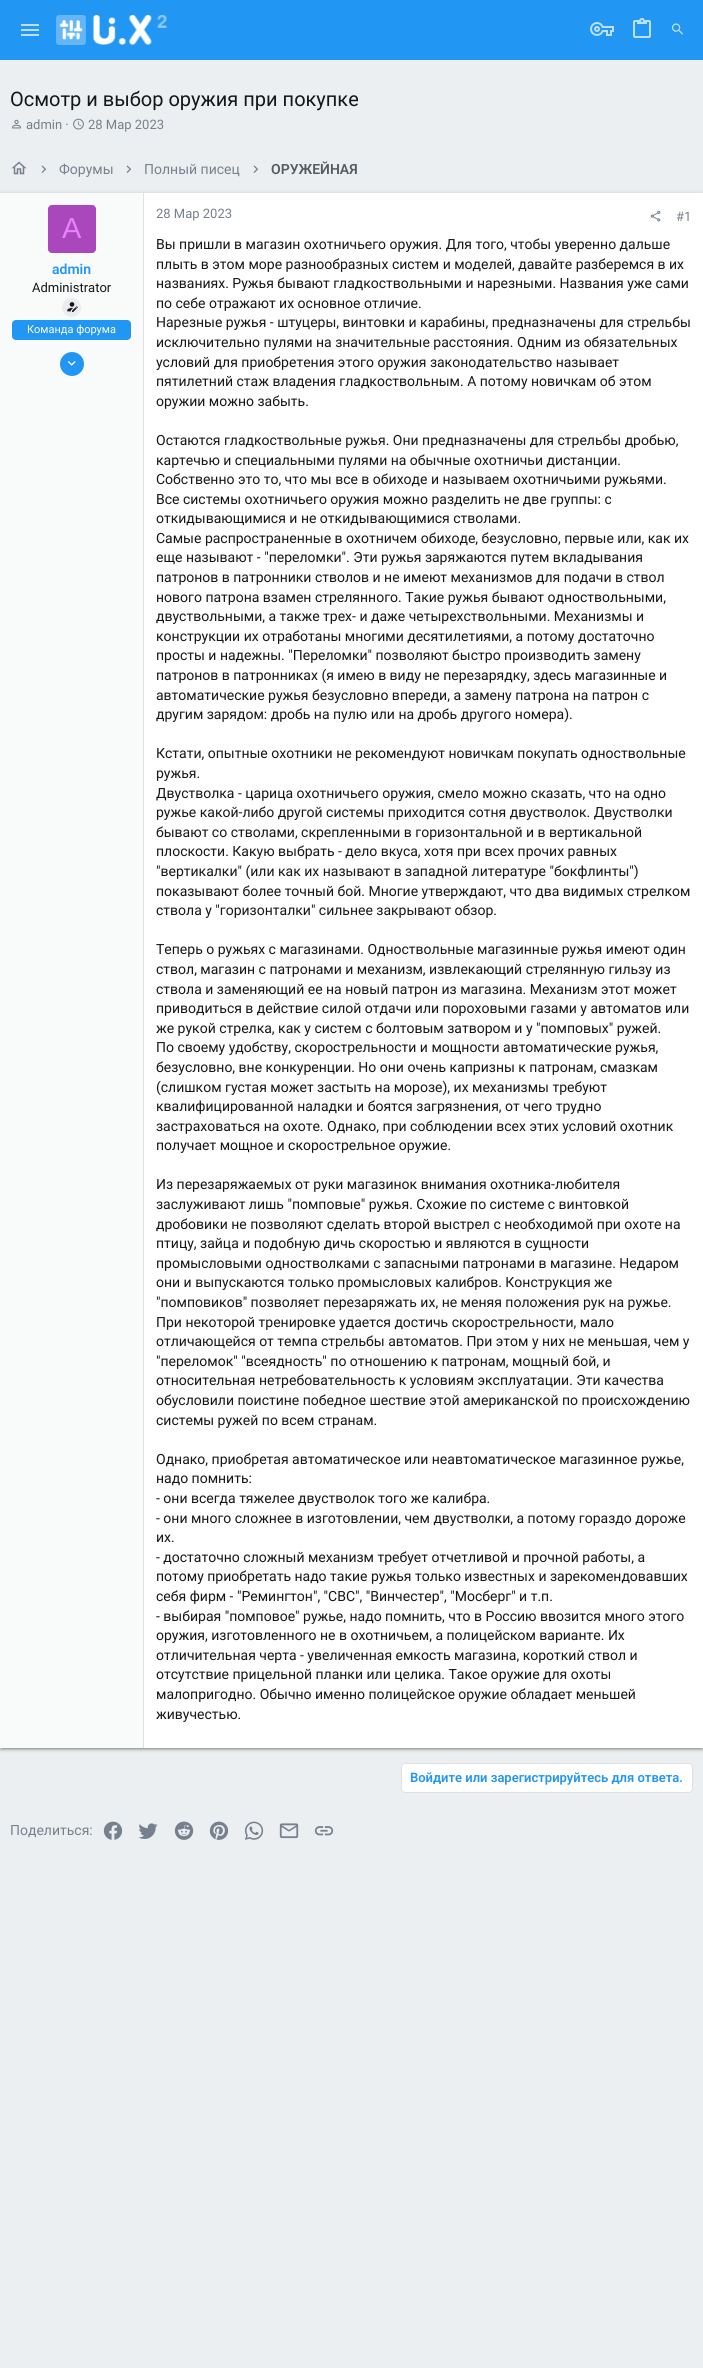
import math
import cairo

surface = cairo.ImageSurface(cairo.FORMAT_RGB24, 703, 2368)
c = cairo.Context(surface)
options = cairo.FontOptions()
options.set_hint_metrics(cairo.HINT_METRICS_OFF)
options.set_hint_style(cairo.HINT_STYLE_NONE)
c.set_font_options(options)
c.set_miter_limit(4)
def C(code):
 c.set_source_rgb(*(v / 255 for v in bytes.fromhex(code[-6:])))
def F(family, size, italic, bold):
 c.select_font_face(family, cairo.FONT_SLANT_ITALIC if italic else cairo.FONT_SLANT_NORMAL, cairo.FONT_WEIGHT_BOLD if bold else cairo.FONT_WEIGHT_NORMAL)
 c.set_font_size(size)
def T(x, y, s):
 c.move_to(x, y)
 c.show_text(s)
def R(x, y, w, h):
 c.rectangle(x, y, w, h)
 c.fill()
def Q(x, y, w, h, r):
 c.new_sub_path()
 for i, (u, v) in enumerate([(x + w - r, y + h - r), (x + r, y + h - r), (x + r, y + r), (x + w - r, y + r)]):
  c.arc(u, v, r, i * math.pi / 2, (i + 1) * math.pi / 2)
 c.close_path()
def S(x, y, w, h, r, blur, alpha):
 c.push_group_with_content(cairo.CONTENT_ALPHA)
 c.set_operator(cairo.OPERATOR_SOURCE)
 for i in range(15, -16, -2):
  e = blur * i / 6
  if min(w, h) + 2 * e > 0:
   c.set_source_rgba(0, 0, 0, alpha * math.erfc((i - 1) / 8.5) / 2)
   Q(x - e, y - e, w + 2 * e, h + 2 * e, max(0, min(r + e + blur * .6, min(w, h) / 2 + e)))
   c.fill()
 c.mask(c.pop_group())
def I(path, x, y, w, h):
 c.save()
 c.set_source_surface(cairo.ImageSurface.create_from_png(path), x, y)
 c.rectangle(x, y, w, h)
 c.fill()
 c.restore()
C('eceff1')
c.paint()
C('2196f3')
R(0,0,703,60)
I('1.png',21,24,18,12)
I('2.png',56,15,111,30)
I('3.png',590,22,24,14)
I('4.png',633,18,18,20)
I('5.png',671,23,12,12)
F('Roboto',20,0,0)
C('141618')
T(10,106,'Осмотр и выбор оружия при покупке')
I('6.png',12,119,9,10)
F('Roboto',13,0,0)
C('76818d')
T(26,129,'admin ·')
I('7.png',73,118,11,12)
T(88,129,'28 Мар 2023')
I('8.png',11,161,16,14)
I('9.png',41,165,6,8)
F('Roboto',14,0,0)
T(59,174,'Форумы')
I('9.png',126,165,6,8)
T(144,174,'Полный писец')
I('9.png',253,165,6,8)
F('Roboto SemiBold',14,0,0)
C('535b63')
T(271,174,'ОРУЖЕЙНАЯ')
C('000000')
S(0,194,703,1555,0,2.5,.2)
S(2,198,699,1551,0,.5,.12)
S(0,195,703,1555,0,1,.14)
C('ffffff')
R(144,193,559,1555)
C('f9fafa')
R(0,193,143,1555)
C('e0e0e0')
R(143,193,1,1555)
C('ab47bc')
Q(48,205,48,48,4)
c.fill()
F('Liberation Sans',29,0,0)
C('ea80fc')
T(62,238,'A')
F('Roboto SemiBold',14,0,0)
C('2196f3')
T(52,274,'admin')
F('Roboto',13,0,0)
C('141618')
T(32,292,'Administrator')
C('ebecee')
c.new_path()
c.arc(71.5,307.5,9.5,0,2 * math.pi)
c.fill()
I('10.png',67,302,11,10)
C('2196f3')
Q(12.5,320.5,118,19,3.5)
c.fill_preserve()
c.set_line_width(1)
c.stroke()
F('Roboto',11,0,0)
C('ffffff')
T(27,333,'Команда форума')
C('2196f3')
c.new_path()
c.arc(72,364,12,0,2 * math.pi)
c.fill()
I('11.png',68,361,8,5)
F('Roboto',13,0,0)
C('76818d')
T(156,218,'28 Мар 2023')
I('12.png',650,210,11,12)
T(676,221,'#1')
F('Roboto',14,0,0)
C('141618')
T(156,249,'Вы пришли в магазин охотничьего оружия. Для того, чтобы уверенно дальше')
T(156,269,'плыть в этом море разнообразных систем и моделей, давайте разберемся в их')
T(156,288,'названиях. Ружья бывают гладкоствольными и нарезными. Названия уже сами')
T(156,308,'по себе отражают их основное отличие.')
T(156,327,'Нарезные ружья - штуцеры, винтовки и карабины, предназначены для стрельбы')
T(156,347,'исключительно пулями на значительные расстояния. Одним из обязательных')
T(156,367,'условий для приобретения этого оружия законодательство называет')
T(156,386,'пятилетний стаж владения гладкоствольным. А потому новичкам об этом')
T(156,406,'оружии можно забыть.')
T(156,445,'Остаются гладкоствольные ружья. Они предназначены для стрельбы дробью,')
T(156,465,'картечью и специальными пулями на обычные охотничьи дистанции.')
T(156,484,'Собственно это то, что мы все в обиходе и называем охотничьими ружьями.')
T(156,504,'Все системы охотничьего оружия можно разделить не две группы: с')
T(156,523,'откидывающимися и не откидывающимися стволами.')
T(156,543,'Самые распространенные в охотничем обиходе, безусловно, первые или, как их')
T(156,562,'еще называют - "переломки". Эти ружья заряжаются путем вкладывания')
T(156,582,'патронов в патронники стволов и не имеют механизмов для подачи в ствол')
T(156,602,'нового патрона взамен стрелянного. Такие ружья бывают одноствольными,')
T(156,621,'двуствольными, а также трех- и даже четырехствольными. Механизмы и')
T(156,641,'конструкции их отработаны многими десятилетиями, а потому достаточно')
T(156,660,'просты и надежны. "Переломки" позволяют быстро производить замену')
T(156,680,'патронов в патронниках (я имею в виду не перезарядку, здесь магазинные и')
T(156,700,'автоматические ружья безусловно впереди, а замену патрона на патрон с')
T(156,719,'другим зарядом: дробь на пулю или на дробь другого номера).')
T(156,758,'Кстати, опытные охотники не рекомендуют новичкам покупать одноствольные')
T(156,778,'ружья.')
T(156,798,'Двустволка - царица охотничьего оружия, смело можно сказать, что на одно')
T(156,817,'ружье какой-либо другой системы приходится сотня двустволок. Двустволки')
T(156,837,'бывают со стволами, скрепленными в горизонтальной и в вертикальной')
T(156,856,'плоскости. Какую выбрать - дело вкуса, хотя при всех прочих равных')
T(156,876,'"вертикалки" (или как их называют в западной литературе "бокфлинты")')
T(156,896,'показывают более точный бой. Многие утверждают, что два видимых стрелком')
T(156,915,'ствола у "горизонталки" сильнее закрывают обзор.')
T(156,954,'Теперь о ружьях с магазинами. Одноствольные магазинные ружья имеют один')
T(156,974,'ствол, магазин с патронами и механизм, извлекающий стрелянную гильзу из')
T(156,994,'ствола и заменяющий ее на новый патрон из магазина. Механизм этот может')
T(156,1013,'приводиться в действие силой отдачи или пороховыми газами у автоматов или')
T(156,1033,'же рукой стрелка, как у систем с болтовым затвором и у "помповых" ружей.')
T(156,1052,'По своему удобству, скорострельности и мощности автоматические ружья,')
T(156,1072,'безусловно, вне конкуренции. Но они очень капризны к патронам, смазкам')
T(156,1092,'(слишком густая может застыть на морозе), их механизмы требуют')
T(156,1111,'квалифицированной наладки и боятся загрязнения, от чего трудно')
T(156,1131,'застраховаться на охоте. Однако, при соблюдении всех этих условий охотник')
T(156,1150,'получает мощное и скорострельное оружие.')
T(156,1189,'Из перезаряжаемых от руки магазинок внимания охотника-любителя')
T(156,1209,'заслуживают лишь "помповые" ружья. Схожие по системе с винтовкой')
T(156,1229,'дробовики не позволяют сделать второй выстрел с необходимой при охоте на')
T(156,1248,'птицу, зайца и подобную дичь скоростью и являются в сущности')
T(156,1268,'промысловыми одностволками с запасными патронами в магазине. Недаром')
T(156,1287,'они и выпускаются только промысловых калибров. Конструкция же')
T(156,1307,'"помповиков" позволяет перезаряжать их, не меняя положения рук на ружье.')
T(156,1327,'При некоторой тренировке удается достичь скорострельности, мало')
T(156,1346,'отличающейся от темпа стрельбы автоматов. При этом у них не меньшая, чем у')
T(156,1366,'"переломок" "всеядность" по отношению к патронам, мощный бой, и')
T(156,1385,'относительная нетребовательность к условиям эксплуатации. Эти качества')
T(156,1405,'обусловили поистине победное шествие этой американской по происхождению')
T(156,1425,'системы ружей по всем странам.')
T(156,1464,'Однако, приобретая автоматическое или неавтоматическое магазинное ружье,')
T(156,1483,'надо помнить:')
T(156,1503,'- они всегда тяжелее двустволок того же калибра.')
T(156,1523,'- они много сложнее в изготовлении, чем двустволки, а потому гораздо дороже')
T(156,1542,'их.')
T(156,1562,'- достаточно сложный механизм требует отчетливой и прочной работы, а')
T(156,1581,'потому приобретать надо такие ружья только известных и зарекомендовавших')
T(156,1601,'себя фирм - "Ремингтон", "СВС", "Винчестер", "Мосберг" и т.п.')
T(156,1621,'- выбирая "помповое" ружье, надо помнить, что в Россию ввозится много этого')
T(156,1640,'оружия, изготовленного не в охотничьем, а полицейском варианте. Их')
T(156,1660,'отличительная черта - увеличенная емкость магазина, короткий ствол и')
T(156,1679,'отсутствие прицельной планки или целика. Такое оружие для охоты')
T(156,1699,'малопригодно. Обычно именно полицейское оружие обладает меньшей')
T(156,1719,'живучестью.')
C('ffffff')
Q(401.5,1763.5,291,29,3.5)
c.fill_preserve()
C('e0e0e0')
c.stroke()
F('Roboto SemiBold',13,0,0)
C('2196f3')
T(410,1782,'Войдите или зарегистрируйтесь для ответа.')
F('Roboto',14,0,0)
C('76818d')
T(10,1835,'Поделиться:')
I('13.png',103,1821,20,19)
I('14.png',138,1823,20,16)
I('15.png',174,1821,20,19)
I('16.png',209,1821,20,19)
I('17.png',244,1821,20,19)
I('18.png',279,1823,20,16)
I('19.png',314,1826,20,10)
surface.write_to_png('o.png')
